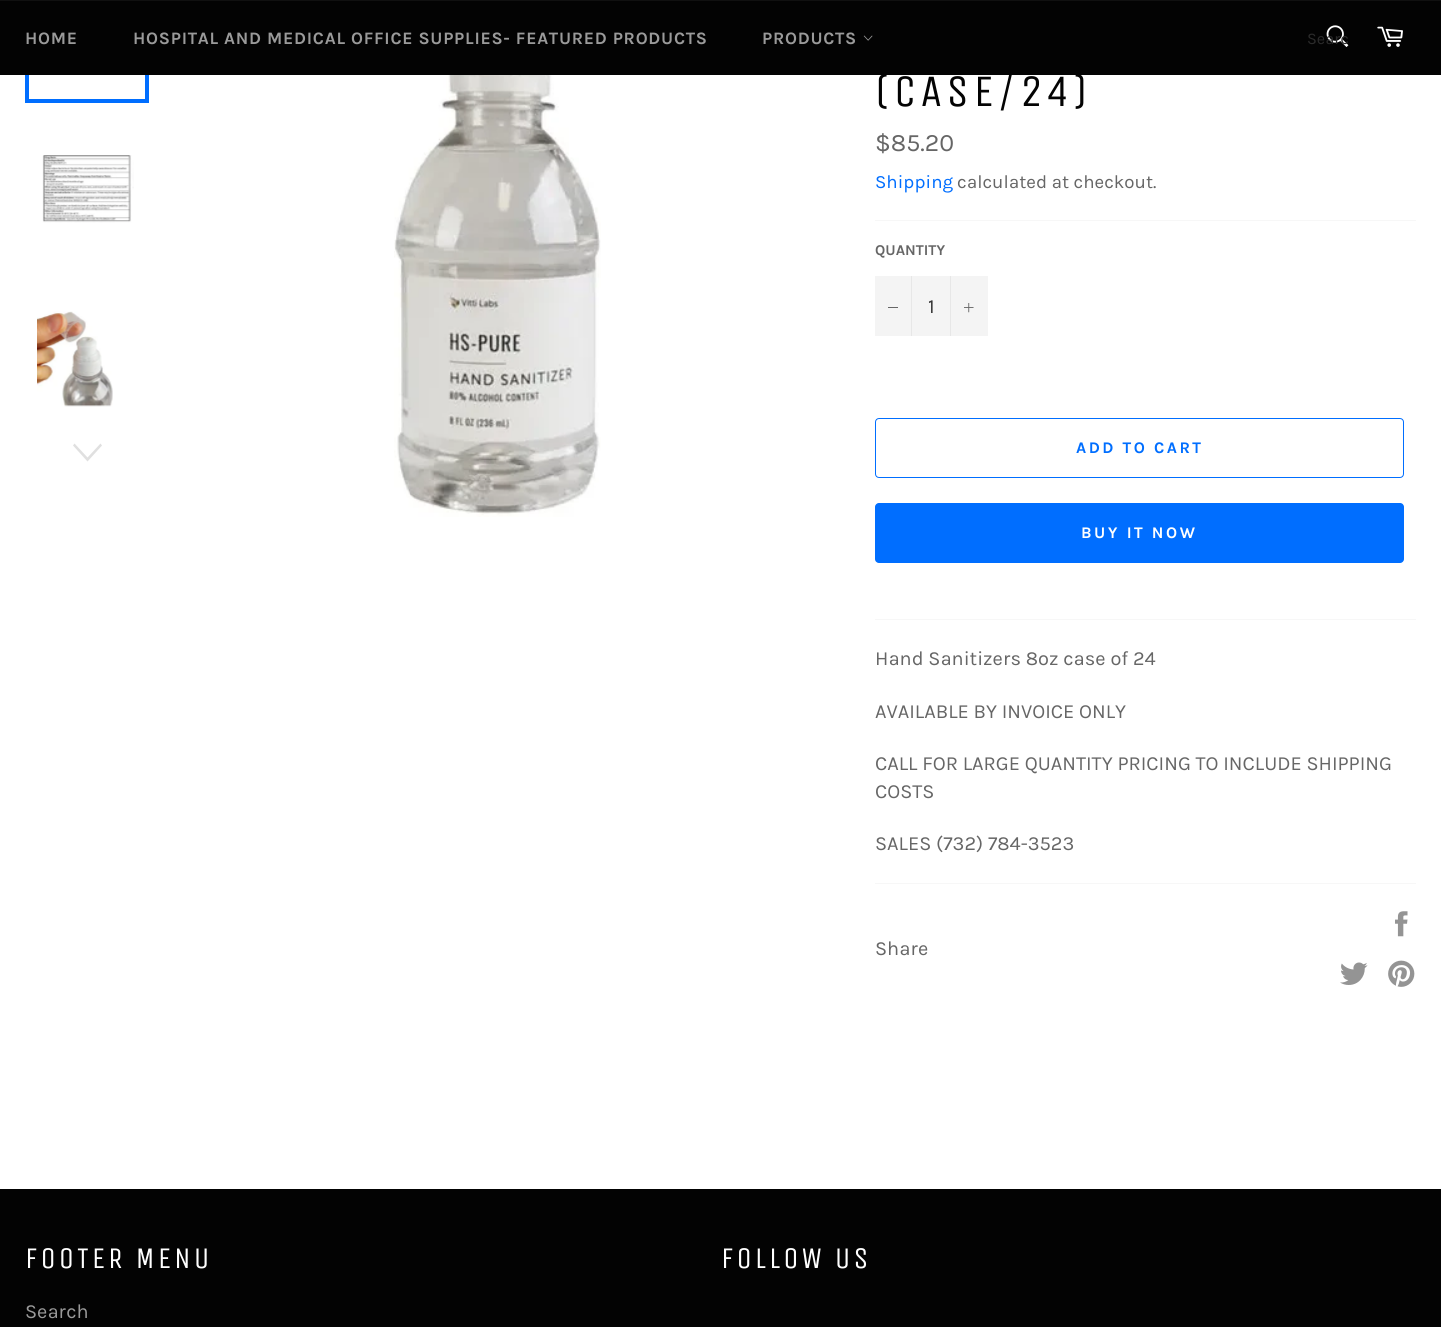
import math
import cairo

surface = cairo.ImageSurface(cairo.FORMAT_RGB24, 1441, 1327)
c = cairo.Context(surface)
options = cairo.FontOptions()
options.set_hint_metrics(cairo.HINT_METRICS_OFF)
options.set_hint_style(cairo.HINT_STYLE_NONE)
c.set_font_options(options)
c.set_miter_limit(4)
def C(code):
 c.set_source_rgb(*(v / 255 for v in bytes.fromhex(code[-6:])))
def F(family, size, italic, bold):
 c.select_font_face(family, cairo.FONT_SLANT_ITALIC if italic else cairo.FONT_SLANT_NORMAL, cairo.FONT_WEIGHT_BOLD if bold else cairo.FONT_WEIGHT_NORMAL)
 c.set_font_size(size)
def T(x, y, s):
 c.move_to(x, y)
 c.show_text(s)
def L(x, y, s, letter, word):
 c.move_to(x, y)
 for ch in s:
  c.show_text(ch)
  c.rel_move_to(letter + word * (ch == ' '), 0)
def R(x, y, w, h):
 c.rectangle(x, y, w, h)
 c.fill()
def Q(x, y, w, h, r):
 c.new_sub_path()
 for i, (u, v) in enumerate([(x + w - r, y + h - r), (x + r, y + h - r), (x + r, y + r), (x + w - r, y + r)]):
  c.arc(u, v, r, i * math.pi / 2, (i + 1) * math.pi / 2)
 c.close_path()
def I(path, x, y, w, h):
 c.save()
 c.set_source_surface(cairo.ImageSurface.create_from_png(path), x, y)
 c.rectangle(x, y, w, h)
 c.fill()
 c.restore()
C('ffffff')
c.paint()
c.rectangle(27,-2,120,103)
C('006eff')
c.set_line_width(4)
c.stroke()
C('030303')
R(0,1,1441,74)
C('101010')
R(0,0,1441,1)
F('Karla',17.5,0,1)
C('9a9a9a')
L(25,44,'HOME',.75,0)
L(133,44,'HOSPITAL AND MEDICAL OFFICE SUPPLIES- FEATURED PRODUCTS',.75,0)
L(762,44,'PRODUCTS',.75,0)
I('1.png',863,35,10,6)
I('2.png',1326,25,23,22)
c.save()
c.rectangle(1308,29,40,19)
c.clip()
F('Karla',16.25,0,0)
C('2b2b2b')
T(1307,44,'Searc')
c.restore()
I('3.png',1377,26,26,21)
I('4.png',42,155,92,68)
I('5.png',37,311,76,96)
C('e0e0e0')
c.new_path()
c.move_to(100.5,443.5)
c.line_to(102,445.5)
c.line_to(87.5,461.5)
c.line_to(73,445.5)
c.line_to(74.5,443.5)
c.line_to(87.5,457.5)
c.close_path()
c.fill()
I('6.png',394,75,207,442)
F('Unica One',45,0,0)
C('030303')
L(875,106,'(CASE/24)',4.5,0)
F('Karla',25,0,0)
C('666666')
T(875,151,'$85.20')
F('Karla',18.75,0,0)
C('006eff')
T(875,188,'Shipping')
C('666666')
T(957,188,'calculated at checkout.')
C('f7f7f7')
R(875,220,541,1)
F('Karla',15,0,1)
C('666666')
T(875,255,'QUANTITY')
C('f4f4f4')
R(875,276,113,60)
C('e7e7e7')
R(911,276,1,60)
C('666666')
R(888,307,10,1)
F('Karla',20,0,0)
C('333333')
T(928,313,'1')
C('e7e7e7')
R(950,276,1,60)
I('7.png',964,303,10,10)
Q(875.5,418.5,528,59,3.5)
C('006eff')
c.set_line_width(1)
c.stroke()
F('Karla',16.25,0,1)
L(1076,453,'ADD TO CART',2.5,0)
Q(875,503,529,60,4)
c.fill()
C('ffffff')
L(1081,538,'BUY IT NOW',2.5,0)
C('f7f7f7')
R(875,619,541,1)
F('Karla',20,0,0)
C('666666')
T(875,665,'Hand Sanitizers 8oz case of 24')
T(875,718,'AVAILABLE BY INVOICE ONLY')
T(875,770,'CALL FOR LARGE QUANTITY PRICING TO INCLUDE SHIPPING')
T(875,798,'COSTS')
T(875,850,'SALES (732) 784-3523')
C('f7f7f7')
R(875,883,541,1)
C('666666')
T(875,955,'Share')
I('8.png',1395,911,13,26)
I('9.png',1340,962,28,23)
I('10.png',1388,960,27,27)
C('030303')
R(0,1189,1441,138)
F('Unica One',30,0,0)
C('ffffff')
L(25,1268,'FOOTER MENU',3,0)
F('Karla',20,0,0)
C('9a9a9a')
T(25,1318,'Search')
F('Unica One',30,0,0)
C('ffffff')
L(721,1268,'FOLLOW US',3,0)
surface.write_to_png('o.png')
